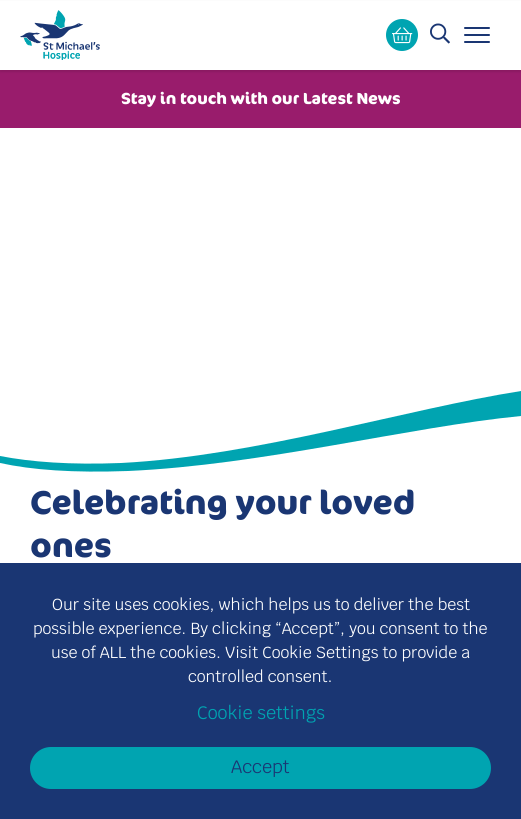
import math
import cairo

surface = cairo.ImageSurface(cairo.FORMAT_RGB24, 521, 819)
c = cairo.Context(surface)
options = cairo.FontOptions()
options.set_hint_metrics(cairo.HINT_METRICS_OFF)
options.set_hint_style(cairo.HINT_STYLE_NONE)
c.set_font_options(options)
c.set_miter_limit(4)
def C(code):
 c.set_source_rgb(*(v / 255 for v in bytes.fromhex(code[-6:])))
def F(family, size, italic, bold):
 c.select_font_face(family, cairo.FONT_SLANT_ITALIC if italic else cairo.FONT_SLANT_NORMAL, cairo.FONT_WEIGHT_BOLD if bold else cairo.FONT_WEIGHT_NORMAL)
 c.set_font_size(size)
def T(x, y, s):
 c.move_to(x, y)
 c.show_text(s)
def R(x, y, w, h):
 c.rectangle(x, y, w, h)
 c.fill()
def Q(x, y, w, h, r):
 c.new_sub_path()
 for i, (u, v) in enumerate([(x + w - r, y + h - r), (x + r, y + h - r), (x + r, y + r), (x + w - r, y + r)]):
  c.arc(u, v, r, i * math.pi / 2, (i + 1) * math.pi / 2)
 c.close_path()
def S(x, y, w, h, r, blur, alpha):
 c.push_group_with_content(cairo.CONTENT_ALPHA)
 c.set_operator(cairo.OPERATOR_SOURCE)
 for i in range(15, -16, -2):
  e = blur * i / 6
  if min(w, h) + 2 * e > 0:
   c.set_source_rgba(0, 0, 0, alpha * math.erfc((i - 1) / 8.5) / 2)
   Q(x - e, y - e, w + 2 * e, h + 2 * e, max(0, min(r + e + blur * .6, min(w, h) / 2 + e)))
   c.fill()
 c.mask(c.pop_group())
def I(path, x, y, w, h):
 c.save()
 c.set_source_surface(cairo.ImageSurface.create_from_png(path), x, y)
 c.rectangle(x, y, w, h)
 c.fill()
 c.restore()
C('ffffff')
c.paint()
C('991c6c')
R(0,70,521,58)
C('000000')
S(0,2,521,70,0,1,.1)
C('ffffff')
R(0,1,521,69)
I('1.png',20,10,80,50)
C('00a4b1')
c.arc(402,35,16,0,2 * math.pi)
c.fill()
I('2.png',392,27,21,17)
I('3.png',430,23,20,21)
C('1a3673')
Q(464,27,26,2,1)
c.fill()
Q(464,34,26,2,1)
c.fill()
Q(464,41,26,2,1)
c.fill()
F('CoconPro',16,0,1)
C('ffffff')
T(121,104,'Stay in touch with our Latest News')
c.save()
c.rectangle(0,391,521,81)
c.clip()
C('00a4b1')
c.new_path()
c.move_to(521,473)
c.line_to(0,473)
c.line_to(0,456)
c.curve_to(31,462,70,465,121,463)
c.curve_to(257,456,406,409,521,391)
c.close_path()
c.fill()
C('ffffff')
c.new_path()
c.move_to(521,473)
c.line_to(0,473)
c.line_to(0,463)
c.curve_to(32,470,73,473,128,471)
c.curve_to(263,465,408,427,521,416)
c.close_path()
c.fill()
c.restore()
F('CoconPro',33,0,1)
C('1a3673')
T(30,514,'Celebrating your loved')
T(30,557,'ones')
R(0,563,521,256)
F('Krub',16,0,0)
C('ffffff')
T(52,610,'Our site uses cookies, which helps us to deliver the best')
T(33,634,'possible experience. By clicking “Accept”, you consent to the')
T(51,658,'use of ALL the cookies. Visit Cookie Settings to provide a')
T(188,682,'controlled consent.')
F('Krub',18,0,0)
C('00a4b1')
T(197,719,'Cookie settings')
Q(30,747,461,42,21)
c.fill()
C('1a3673')
T(231,773,'Accept')
surface.write_to_png('o.png')
